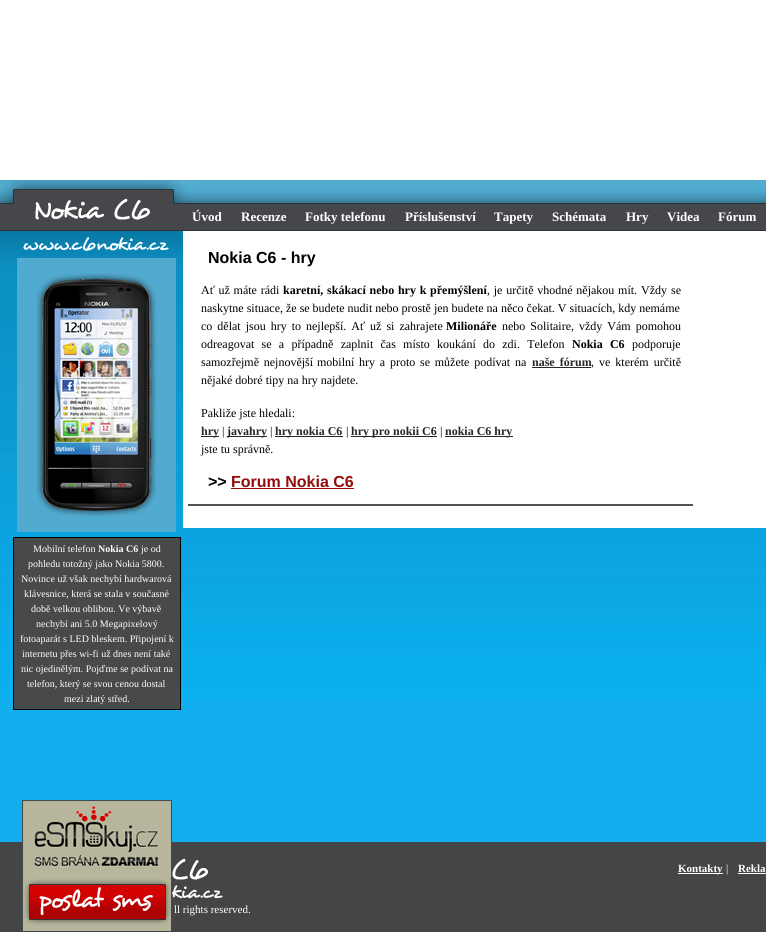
import math
import cairo

surface = cairo.ImageSurface(cairo.FORMAT_RGB24, 766, 932)
c = cairo.Context(surface)
options = cairo.FontOptions()
options.set_hint_metrics(cairo.HINT_METRICS_OFF)
options.set_hint_style(cairo.HINT_STYLE_NONE)
c.set_font_options(options)
c.set_miter_limit(4)
def C(code):
 c.set_source_rgb(*(v / 255 for v in bytes.fromhex(code[-6:])))
def F(family, size, italic, bold):
 c.select_font_face(family, cairo.FONT_SLANT_ITALIC if italic else cairo.FONT_SLANT_NORMAL, cairo.FONT_WEIGHT_BOLD if bold else cairo.FONT_WEIGHT_NORMAL)
 c.set_font_size(size)
def T(x, y, s):
 c.move_to(x, y)
 c.show_text(s)
def L(x, y, s, letter, word):
 c.move_to(x, y)
 for ch in s:
  c.show_text(ch)
  c.rel_move_to(letter + word * (ch == ' '), 0)
def R(x, y, w, h):
 c.rectangle(x, y, w, h)
 c.fill()
def I(path, x, y, w, h):
 c.save()
 c.set_source_surface(cairo.ImageSurface.create_from_png(path), x, y)
 c.rectangle(x, y, w, h)
 c.fill()
 c.restore()
C('13aeee')
c.paint()
I('1.png',0,0,766,700)
I('2.png',0,180,193,51)
F('Liberation Serif',13,0,1)
C('ffffff')
T(192,221,'Úvod')
T(241,221,'Recenze')
T(305,221,'Fotky telefonu')
T(405,221,'Příslušenství')
T(494,221,'Tapety')
T(552,221,'Schémata')
T(626,221,'Hry')
T(667,221,'Videa')
T(718,221,'Fórum')
R(183,231,583,297)
F('Liberation Sans',16,0,1)
C('000000')
T(208,263,'Nokia C6 - hry')
F('Liberation Serif',12,0,0)
L(201,294,'Ať už máte rádi',0,.75)
F('Liberation Serif',12,0,1)
L(283,294,'karetní, skákací nebo hry k přemýšlení',0,.75)
F('Liberation Serif',12,0,0)
L(487,294,', je určitě vhodné nějakou mít.',0,.75)
L(641,294,'Vždy se',0,1)
T(201,312,'naskytne situace, že se budete nudit nebo prostě jen budete na něco čekat. V situacích, kdy nemáme')
L(201,330,'co dělat jsou hry to nejlepší. Ať už si zahrajete',0,2)
F('Liberation Serif',12,0,1)
T(446,330,'Milionáře')
F('Liberation Serif',12,0,0)
L(502,330,'nebo Solitaire, vždy Vám pomohou',0,2)
L(201,348,'odreagovat se a případně zaplnit čas místo koukání do zdi. Telefon',0,4.25)
F('Liberation Serif',12,0,1)
L(572,348,'Nokia C6',0,4.25)
F('Liberation Serif',12,0,0)
T(632,348,'podporuje')
L(201,366,'samozřejmě nejnovější',0,1.75)
L(317,366,'mobilní hry a proto se můžete podívat na',0,1.75)
F('Liberation Serif',12,0,1)
C('262727')
L(532,366,'naše fórum',0,2)
R(532,367,59,1)
F('Liberation Serif',12,0,0)
C('000000')
L(591,366,', ve kterém určitě',0,2)
T(201,384,'nějaké dobré tipy na hry najdete.')
T(201,417,'Pakliže jste hledali:')
C('262727')
R(201,436,18,1)
F('Liberation Serif',12,0,1)
T(201,435,'hry')
F('Liberation Serif',12,0,0)
C('000000')
T(222,435,'|')
C('262727')
R(227,436,40,1)
F('Liberation Serif',12,0,1)
T(227,435,'javahry')
F('Liberation Serif',12,0,0)
C('000000')
T(270,435,'|')
C('262727')
R(275,436,68,1)
F('Liberation Serif',12,0,1)
T(275,435,'hry nokia C6')
F('Liberation Serif',12,0,0)
C('000000')
T(346,435,'|')
C('262727')
R(351,436,86,1)
F('Liberation Serif',12,0,1)
T(351,435,'hry pro nokii C6')
F('Liberation Serif',12,0,0)
C('000000')
T(440,435,'|')
C('262727')
R(445,436,68,1)
F('Liberation Serif',12,0,1)
T(445,435,'nokia C6 hry')
F('Liberation Serif',12,0,0)
C('000000')
T(201,453,'jste tu správně.')
F('Liberation Sans',16,0,1)
T(208,487,'>>')
C('950c0c')
T(231,487,'Forum Nokia C6')
R(231,488,123,1)
C('515151')
R(188,504,505,2)
I('3.png',35,198,115,22)
I('4.png',23,237,146,14)
C('51aacf')
R(17,258,159,274)
I('5.png',36,273,121,244)
C('47494a')
c.rectangle(13.5,537.5,167,172)
c.fill_preserve()
C('000000')
c.set_line_width(1)
c.stroke()
F('Liberation Serif',10,0,0)
C('ffffff')
T(33,552,'Mobilní telefon')
F('Liberation Serif',10,0,1)
T(98,552,'Nokia C6')
F('Liberation Serif',10,0,0)
T(141,552,'je od')
T(28,567,'pohledu totožný jako Nokia 5800.')
T(21,582,'Novince už však nechybí hardwarová')
T(24,597,'klávesnice, která se stala v současné')
T(31,612,'době velkou oblibou. Ve výbavě')
T(36,627,'nechybí ani 5.0 Megapixelový')
T(20,642,'fotoaparát s LED bleskem. Připojení k')
T(22,657,'internetu přes wi-fi už dnes není také')
T(21,672,'nic ojedinělým. Pojďme se podívat na')
T(27,687,'telefon, který se svou cenou dostal')
T(64,702,'mezi zlatý střed.')
C('444547')
R(0,842,766,90)
I('6.png',22,800,150,131)
C('ffffff')
R(678,873,45,1)
F('Liberation Serif',11,0,1)
T(678,872,'Kontakty')
F('Liberation Serif',11,0,0)
T(726,872,'|')
F('Liberation Serif',11,0,1)
T(738,872,'Rekla')
R(738,873,28,1)
I('7.png',172,858,36,22)
I('8.png',172,885,51,14)
F('Liberation Serif',11,0,0)
T(174,913,'ll rights reserved.')
surface.write_to_png('o.png')
